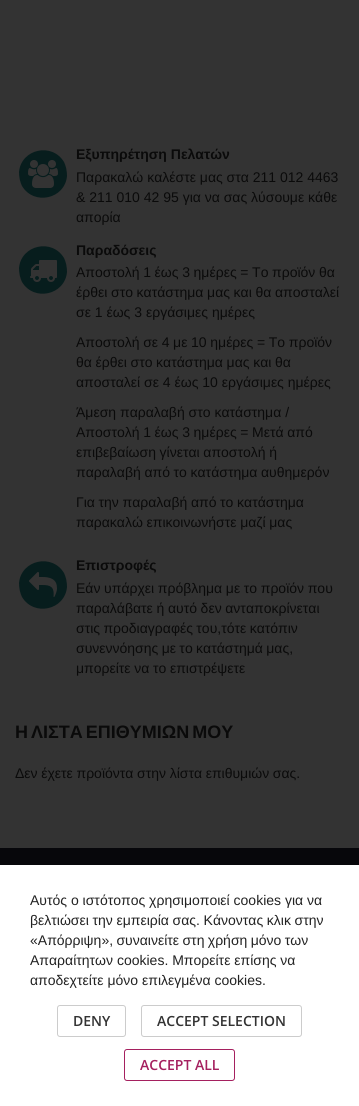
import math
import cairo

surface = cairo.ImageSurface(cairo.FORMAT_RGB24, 359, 1106)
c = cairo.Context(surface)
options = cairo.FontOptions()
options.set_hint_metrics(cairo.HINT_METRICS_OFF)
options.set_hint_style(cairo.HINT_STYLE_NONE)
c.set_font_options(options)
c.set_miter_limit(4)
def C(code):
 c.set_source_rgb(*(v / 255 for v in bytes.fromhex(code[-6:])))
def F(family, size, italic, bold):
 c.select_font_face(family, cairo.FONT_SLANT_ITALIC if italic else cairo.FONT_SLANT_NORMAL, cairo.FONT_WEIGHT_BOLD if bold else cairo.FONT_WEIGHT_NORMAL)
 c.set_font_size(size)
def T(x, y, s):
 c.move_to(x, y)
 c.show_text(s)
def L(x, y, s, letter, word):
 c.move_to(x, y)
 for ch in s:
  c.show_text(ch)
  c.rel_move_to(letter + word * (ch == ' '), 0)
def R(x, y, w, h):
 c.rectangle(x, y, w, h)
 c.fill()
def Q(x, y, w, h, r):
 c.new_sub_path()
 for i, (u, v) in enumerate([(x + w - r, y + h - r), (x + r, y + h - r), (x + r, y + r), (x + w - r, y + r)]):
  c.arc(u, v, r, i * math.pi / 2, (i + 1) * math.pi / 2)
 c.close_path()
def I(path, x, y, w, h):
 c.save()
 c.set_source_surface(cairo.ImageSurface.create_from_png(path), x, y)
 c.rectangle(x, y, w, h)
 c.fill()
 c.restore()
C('333333')
c.paint()
C('071d1d')
c.new_path()
c.move_to(64,162)
c.curve_to(66,166,67,171,67,176)
c.curve_to(65,199,34,206,22,186)
c.curve_to(20,182,19,177,19,172)
c.curve_to(21,149,52,142,64,162)
c.close_path()
c.fill()
I('1.png',28,160,30,28)
F('Liberation Sans',14,0,1)
C('0a0a0a')
T(76,159,'Εξυπηρέτηση Πελατών')
F('Liberation Sans',14,0,0)
T(76,182,'Παρακαλώ καλέστε μας στα 211 012 4463')
T(76,202,'& 211 010 42 95 για να σας λύσουμε κάθε')
T(76,222,'απορία')
C('071d1d')
c.new_path()
c.move_to(64,258)
c.curve_to(66,262,67,267,67,272)
c.curve_to(65,295,34,302,22,282)
c.curve_to(20,278,19,273,19,268)
c.curve_to(21,245,52,238,64,258)
c.close_path()
c.fill()
I('2.png',30,260,27,22)
F('Liberation Sans',14,0,1)
C('0a0a0a')
T(76,255,'Παραδόσεις')
F('Liberation Sans',14,0,0)
L(76,277,'Αποστολή 1 έως 3 ημέρες = Το προϊόν θα',0,-.25)
L(76,297,'έρθει στο κατάστημα μας και θα αποσταλεί',0,-.25)
T(76,317,'σε 1 έως 3 εργάσιμες ημέρες')
L(76,347,'Αποστολή σε 4 με 10 ημέρες = Το προϊόν',0,-.25)
L(76,367,'θα έρθει στο κατάστημα μας και θα',0,-.25)
T(76,387,'αποσταλεί σε 4 έως 10 εργάσιμες ημέρες')
T(76,417,'Άμεση παραλαβή στο κατάστημα /')
L(76,437,'Αποστολή 1 έως 3 ημέρες = Μετά από',0,-.25)
L(76,457,'επιβεβαίωση γίνεται αποστολή ή',0,-.25)
L(76,477,'παραλαβή από το κατάστημα αυθημερόν',0,-.25)
L(76,507,'Για την παραλαβή από το κατάστημα',0,-.25)
L(76,527,'παρακαλώ επικοινωνήστε μαζί μας',0,-.25)
C('071d1d')
c.new_path()
c.move_to(64,573)
c.curve_to(66,577,67,582,67,587)
c.curve_to(65,610,34,617,22,597)
c.curve_to(20,593,19,588,19,583)
c.curve_to(21,560,52,553,64,573)
c.close_path()
c.fill()
I('3.png',29,572,28,25)
F('Liberation Sans',14,0,1)
C('0a0a0a')
T(76,570,'Επιστροφές')
F('Liberation Sans',14,0,0)
L(76,593,'Εάν υπάρχει πρόβλημα με το προϊόν που',0,-.25)
L(76,613,'παραλάβατε ή αυτό δεν ανταποκρίνεται',0,-.25)
L(76,633,'στις προδιαγραφές του,τότε κατόπιν',0,-.5)
L(76,653,'συνεννόησης με το κατάστημά μας,',0,-.5)
L(76,673,'μπορείτε να το επιστρέψετε',0,-.25)
F('Liberation Sans',18,0,1)
L(15,738,'Η ΛΙΣΤΑ ΕΠΙΘΥΜΙΩΝ ΜΟΥ',0,-2)
F('Liberation Sans',14,0,0)
L(15,778,'Δεν έχετε προϊόντα στην λίστα επιθυμιών σας.',0,-.25)
C('07070b')
R(0,848,359,17)
C('ffffff')
R(0,865,359,241)
C('222222')
T(30,905,'Αυτός ο ιστότοπος χρησιμοποιεί cookies για να')
L(30,925,'βελτιώσει την εμπειρία σας. Κάνοντας κλικ στην',0,-.25)
L(30,945,'«Απόρριψη», συναινείτε στη χρήση μόνο των',0,-.5)
T(30,965,'Απαραίτητων cookies. Μπορείτε επίσης να')
T(30,985,'αποδεχτείτε μόνο επιλεγμένα cookies.')
Q(57.5,1005.5,68,31,2.5)
C('cccccc')
c.set_line_width(1)
c.stroke()
F('Open Sans SemiBold',14,0,0)
C('333333')
T(73,1026,'DENY')
Q(141.5,1005.5,160,31,2.5)
C('cccccc')
c.stroke()
C('333333')
T(157,1026,'ACCEPT SELECTION')
Q(124.5,1049.5,110,31,2.5)
C('a5205f')
c.stroke()
T(140,1070,'ACCEPT ALL')
surface.write_to_png('o.png')
